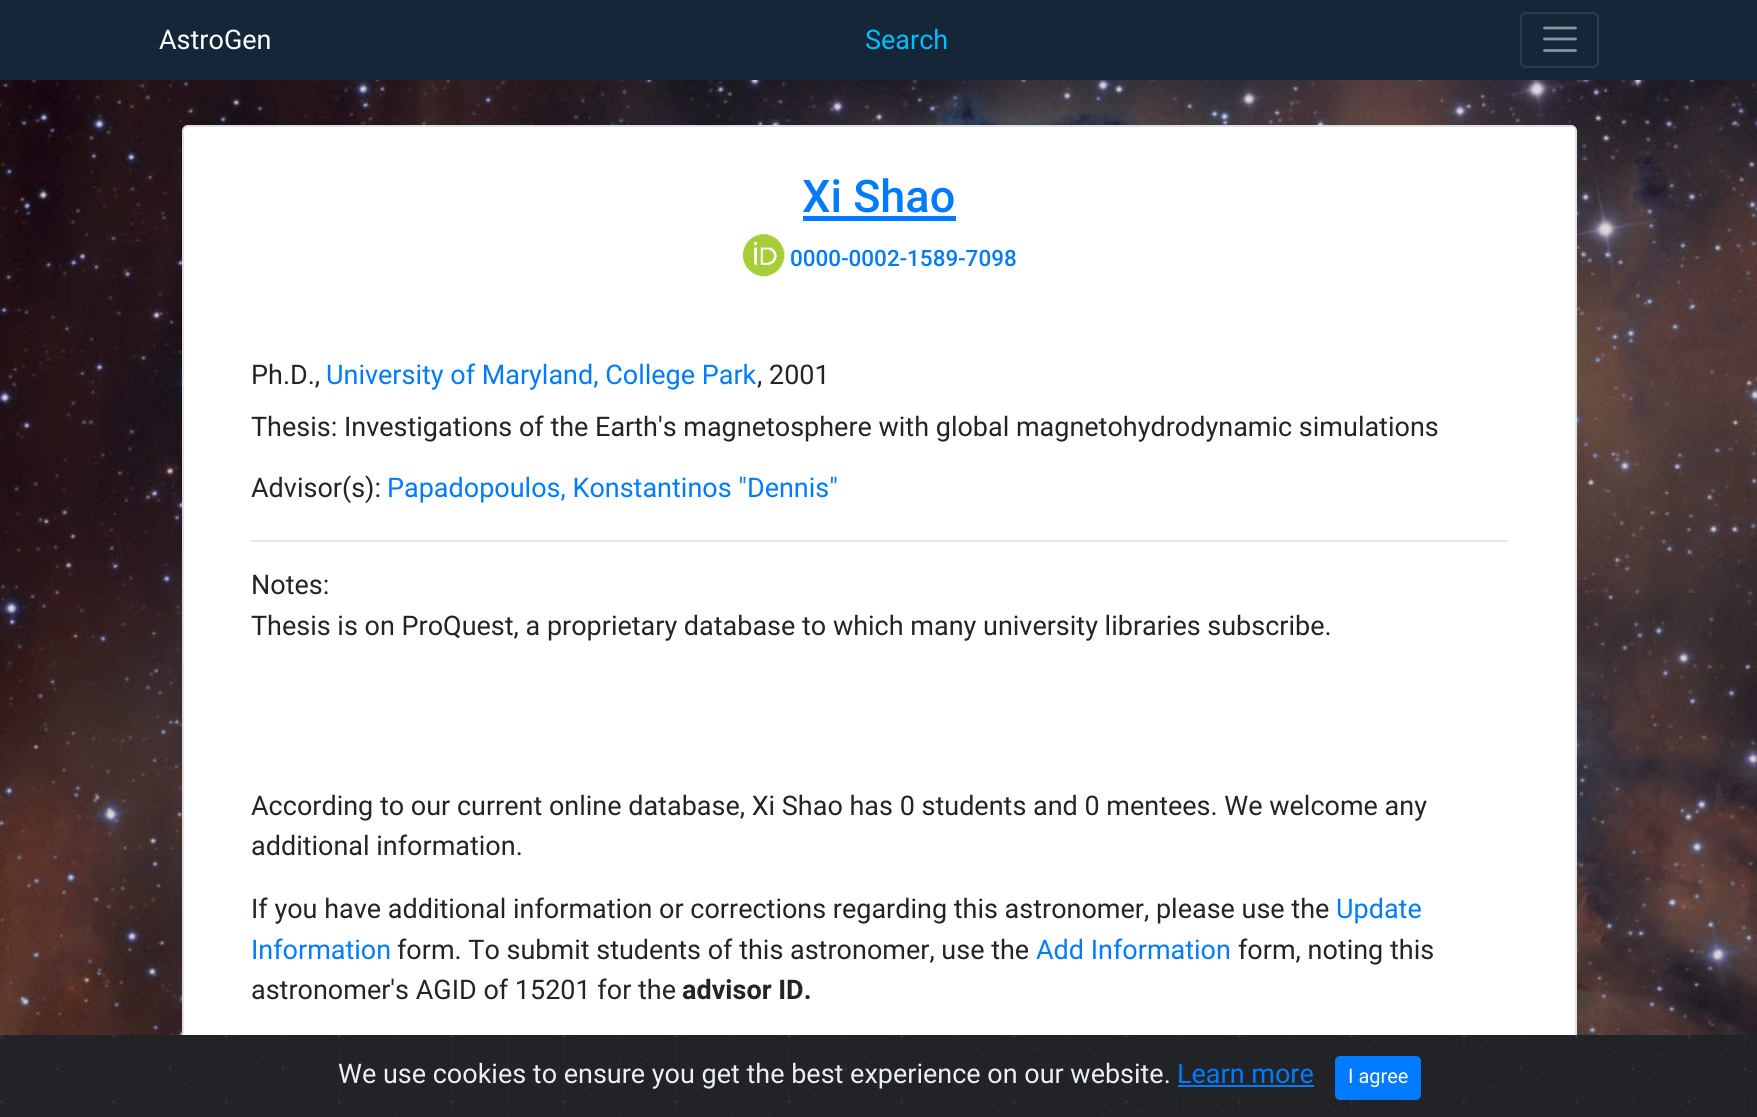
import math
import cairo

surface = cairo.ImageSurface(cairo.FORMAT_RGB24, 1757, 1117)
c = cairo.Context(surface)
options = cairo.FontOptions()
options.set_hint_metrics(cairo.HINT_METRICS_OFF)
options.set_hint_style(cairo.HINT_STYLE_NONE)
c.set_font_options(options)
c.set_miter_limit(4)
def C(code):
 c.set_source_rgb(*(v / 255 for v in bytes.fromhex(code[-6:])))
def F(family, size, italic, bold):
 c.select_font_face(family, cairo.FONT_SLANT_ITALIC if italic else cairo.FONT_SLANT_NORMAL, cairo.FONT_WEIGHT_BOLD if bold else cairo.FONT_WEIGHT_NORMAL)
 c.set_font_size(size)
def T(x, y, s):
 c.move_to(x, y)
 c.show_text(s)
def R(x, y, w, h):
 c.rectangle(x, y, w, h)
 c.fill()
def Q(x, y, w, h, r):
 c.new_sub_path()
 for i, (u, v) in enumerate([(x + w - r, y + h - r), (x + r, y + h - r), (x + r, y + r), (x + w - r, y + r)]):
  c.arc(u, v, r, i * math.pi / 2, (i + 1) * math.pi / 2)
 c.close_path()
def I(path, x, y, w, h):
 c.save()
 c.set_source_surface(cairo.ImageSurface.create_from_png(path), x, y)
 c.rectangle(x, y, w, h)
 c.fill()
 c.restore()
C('ffffff')
c.paint()
I('1.png',0,80,1757,955)
C('152638')
R(0,0,1757,80)
F('Roboto',27,0,0)
C('ffffff')
T(159,49,'AstroGen')
C('00bfff')
T(865,49,'Search')
Q(1521,13,77,54,5)
C('2c3c4c')
c.stroke()
c.new_path()
c.move_to(1544.5,28)
c.line_to(1575.5,28)
c.move_to(1544.5,39)
c.line_to(1575.5,39)
c.move_to(1544.5,50.5)
c.line_to(1575.5,50.5)
C('8a939c')
c.set_line_width(2.8)
c.set_line_cap(cairo.LINE_CAP_ROUND)
c.stroke()
C('ffffff')
Q(182,125,1395,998,6)
c.fill()
Q(183,126,1393,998,5)
c.set_source_rgba(0,0,0,0.12)
c.set_line_width(2)
c.set_line_cap(cairo.LINE_CAP_BUTT)
c.stroke()
F('Roboto Medium',45,0,0)
C('007bff')
T(802,212,'Xi Shao')
R(803,216,153,5)
I('2.png',742,234,43,43)
F('Roboto Medium',22.5,0,0)
T(790,266,'0000-0002-1589-7098')
F('Roboto',27,0,0)
C('212529')
T(251,384,'Ph.D.,')
C('007bff')
T(326,384,'University of Maryland, College Park')
C('212529')
T(757,384,', 2001')
T(251,436,'Thesis: Investigations of the Earth\'s magnetosphere with global magnetohydrodynamic simulations')
T(251,497,'Advisor(s):')
C('007bff')
T(387,497,'Papadopoulos, Konstantinos "Dennis"')
C('e6e6e6')
R(251,540,1257,2)
C('212529')
T(251,594,'Notes:')
T(251,635,'Thesis is on ProQuest, a proprietary database to which many university libraries subscribe.')
T(251,815,'According to our current online database, Xi Shao has 0 students and 0 mentees. We welcome any')
T(251,855,'additional information.')
T(251,918,'If you have additional information or corrections regarding this astronomer, please use the')
C('007bff')
T(1336,918,'Update')
T(251,959,'Information')
C('212529')
T(397,959,'form. To submit students of this astronomer, use the')
C('007bff')
T(1036,959,'Add Information')
C('212529')
T(1238,959,'form, noting this')
T(251,999,'astronomer\'s AGID of 15201 for the')
F('Roboto',27,0,1)
T(682,999,'advisor ID.')
C('212327')
R(0,1035,1757,82)
I('3.png',0,1035,1755,81)
F('Roboto',27,0,0)
C('ecf0f1')
T(338,1083,'We use cookies to ensure you get the best experience on our website.')
C('007bff')
T(1177,1083,'Learn more')
R(1178,1085,136,2)
Q(1336,1057,84,42,4)
c.fill_preserve()
c.stroke()
F('Roboto',20,0,0)
C('ffffff')
T(1348,1083,'I agree')
surface.write_to_png('o.png')
